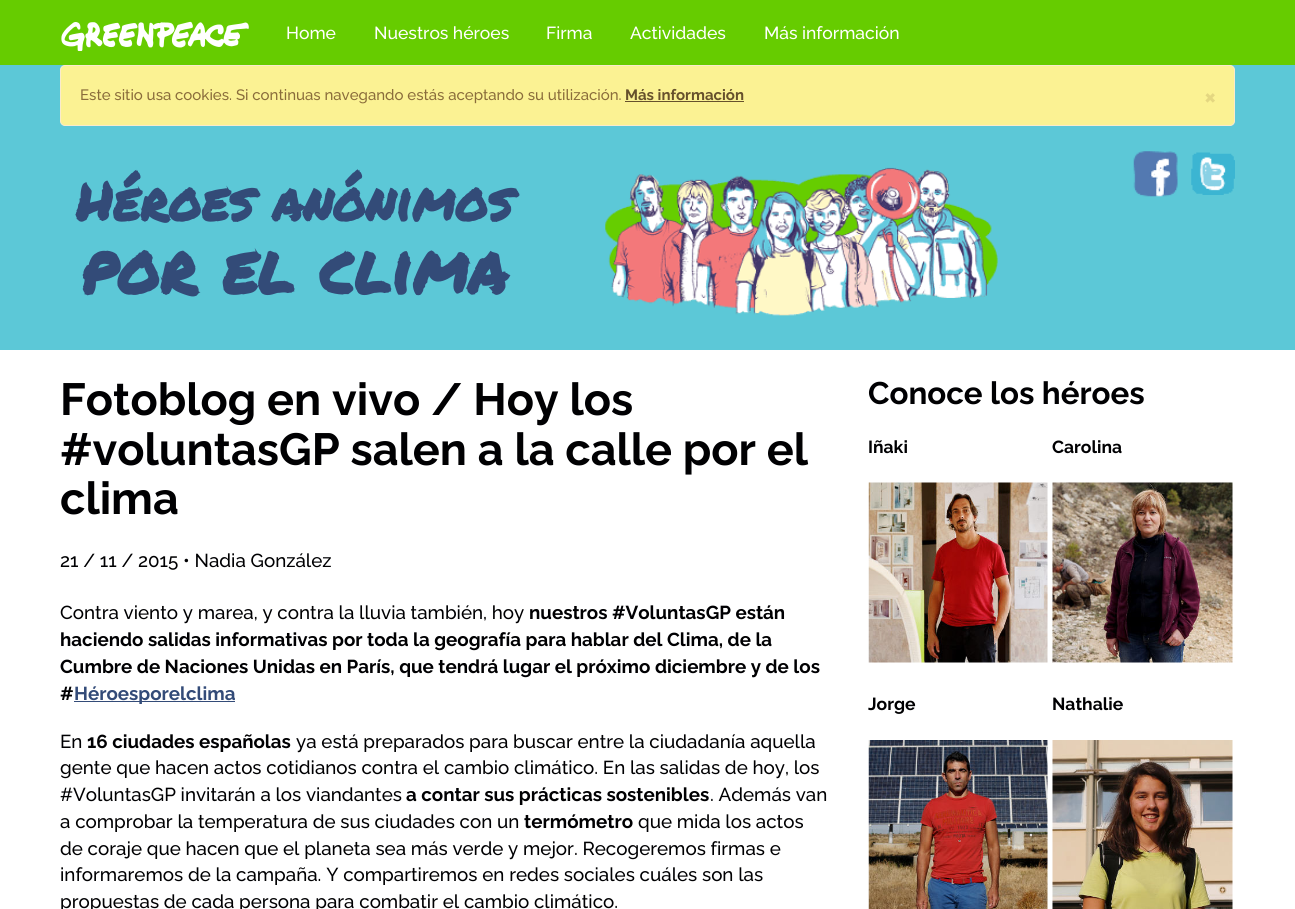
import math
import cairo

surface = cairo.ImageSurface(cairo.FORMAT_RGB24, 1295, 909)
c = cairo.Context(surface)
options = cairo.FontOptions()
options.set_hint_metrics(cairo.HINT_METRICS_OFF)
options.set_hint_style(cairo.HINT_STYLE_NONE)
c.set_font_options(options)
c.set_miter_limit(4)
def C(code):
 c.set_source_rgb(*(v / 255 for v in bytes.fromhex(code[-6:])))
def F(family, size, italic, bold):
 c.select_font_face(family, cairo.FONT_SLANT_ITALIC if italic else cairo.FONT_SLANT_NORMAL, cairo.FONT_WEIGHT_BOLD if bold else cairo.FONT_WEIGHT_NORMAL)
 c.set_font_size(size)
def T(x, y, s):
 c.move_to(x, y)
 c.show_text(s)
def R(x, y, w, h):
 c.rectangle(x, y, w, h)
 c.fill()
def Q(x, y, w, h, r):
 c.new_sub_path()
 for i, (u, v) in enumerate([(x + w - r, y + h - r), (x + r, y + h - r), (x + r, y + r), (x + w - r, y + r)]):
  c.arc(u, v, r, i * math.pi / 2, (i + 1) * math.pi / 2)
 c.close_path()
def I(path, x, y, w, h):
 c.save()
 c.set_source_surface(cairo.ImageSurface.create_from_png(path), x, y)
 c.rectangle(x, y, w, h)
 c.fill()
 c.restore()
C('ffffff')
c.paint()
C('66cc00')
R(0,0,1295,65)
I('1.png',61,21,188,30)
F('Raleway Medium',17.5,0,0)
C('ffffff')
T(286,39,'Home')
T(374,39,'Nuestros héroes')
T(546,39,'Firma')
T(630,39,'Actividades')
T(764,39,'Más información')
C('5cc8d7')
R(0,65,1295,285)
C('fbf293')
Q(60.5,65.5,1174,60,4.5)
c.fill_preserve()
C('faebcc')
c.set_line_width(1)
c.stroke()
F('Raleway Medium',15,0,0)
C('8a6d3b')
T(80,100,'Este sitio usa cookies. Si continuas navegando estás aceptando su utilización.')
F('Raleway',15,0,1)
C('66512c')
T(625,100,'Más información')
R(625,101,119,1)
F('Raleway',26,0,1)
C('e4d781')
T(1204,105,'×')
F('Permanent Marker',52.5,0,1)
C('334b78')
T(76,221,'Héroes anónimos')
F('Permanent Marker',68.25,0,1)
T(81,294,'por el clima')
I('2.png',605,167,393,149)
I('3.png',1133,151,45,46)
I('4.png',1191,152,44,43)
F('Raleway',45,0,1)
C('000002')
T(60,415,'Fotoblog en vivo / Hoy los')
T(60,465,'#voluntasGP salen a la calle por el')
T(60,514,'clima')
F('Raleway Medium',18.75,0,0)
T(60,567,'21 / 11 / 2015 • Nadia González')
T(60,619,'Contra viento y marea, y contra la lluvia también, hoy')
F('Raleway',18.75,0,1)
T(529,619,'nuestros #VoluntasGP están')
T(60,646,'haciendo salidas informativas por toda la geografía para hablar del Clima, de la')
T(60,673,'Cumbre de Naciones Unidas en París, que tendrá lugar el próximo diciembre y de los')
T(60,700,'#')
C('334b78')
R(74,701,161,1)
T(74,700,'Héroesporelclima')
F('Raleway Medium',18.75,0,0)
C('000002')
T(60,748,'En')
F('Raleway',18.75,0,1)
T(87,748,'16 ciudades españolas')
F('Raleway Medium',18.75,0,0)
T(296,748,'ya está preparados para buscar entre la ciudadanía aquella')
T(60,774,'gente que hacen actos cotidianos contra el cambio climático. En las salidas de hoy, los')
T(60,801,'#VoluntasGP invitarán a los viandantes')
F('Raleway',18.75,0,1)
T(406,801,'a contar sus prácticas sostenibles')
F('Raleway Medium',18.75,0,0)
T(710,801,'. Además van')
T(60,828,'a comprobar la temperatura de sus ciudades con un')
F('Raleway',18.75,0,1)
T(524,828,'termómetro')
F('Raleway Medium',18.75,0,0)
T(638,828,'que mida los actos')
T(60,855,'de coraje que hacen que el planeta sea más verde y mejor. Recogeremos firmas e')
T(60,881,'informaremos de la campaña. Y compartiremos en redes sociales cuáles son las')
T(60,908,'propuestas de cada persona para combatir el cambio climático.')
F('Raleway',31.25,0,1)
T(868,404,'Conoce los héroes')
F('Raleway',17.5,0,1)
T(868,453,'Iñaki')
I('5.png',868,482,180,181)
T(1052,453,'Carolina')
I('6.png',1052,482,181,181)
T(868,710,'Jorge')
I('7.png',868,740,180,169)
T(1052,710,'Nathalie')
I('8.png',1052,740,181,169)
surface.write_to_png('o.png')
